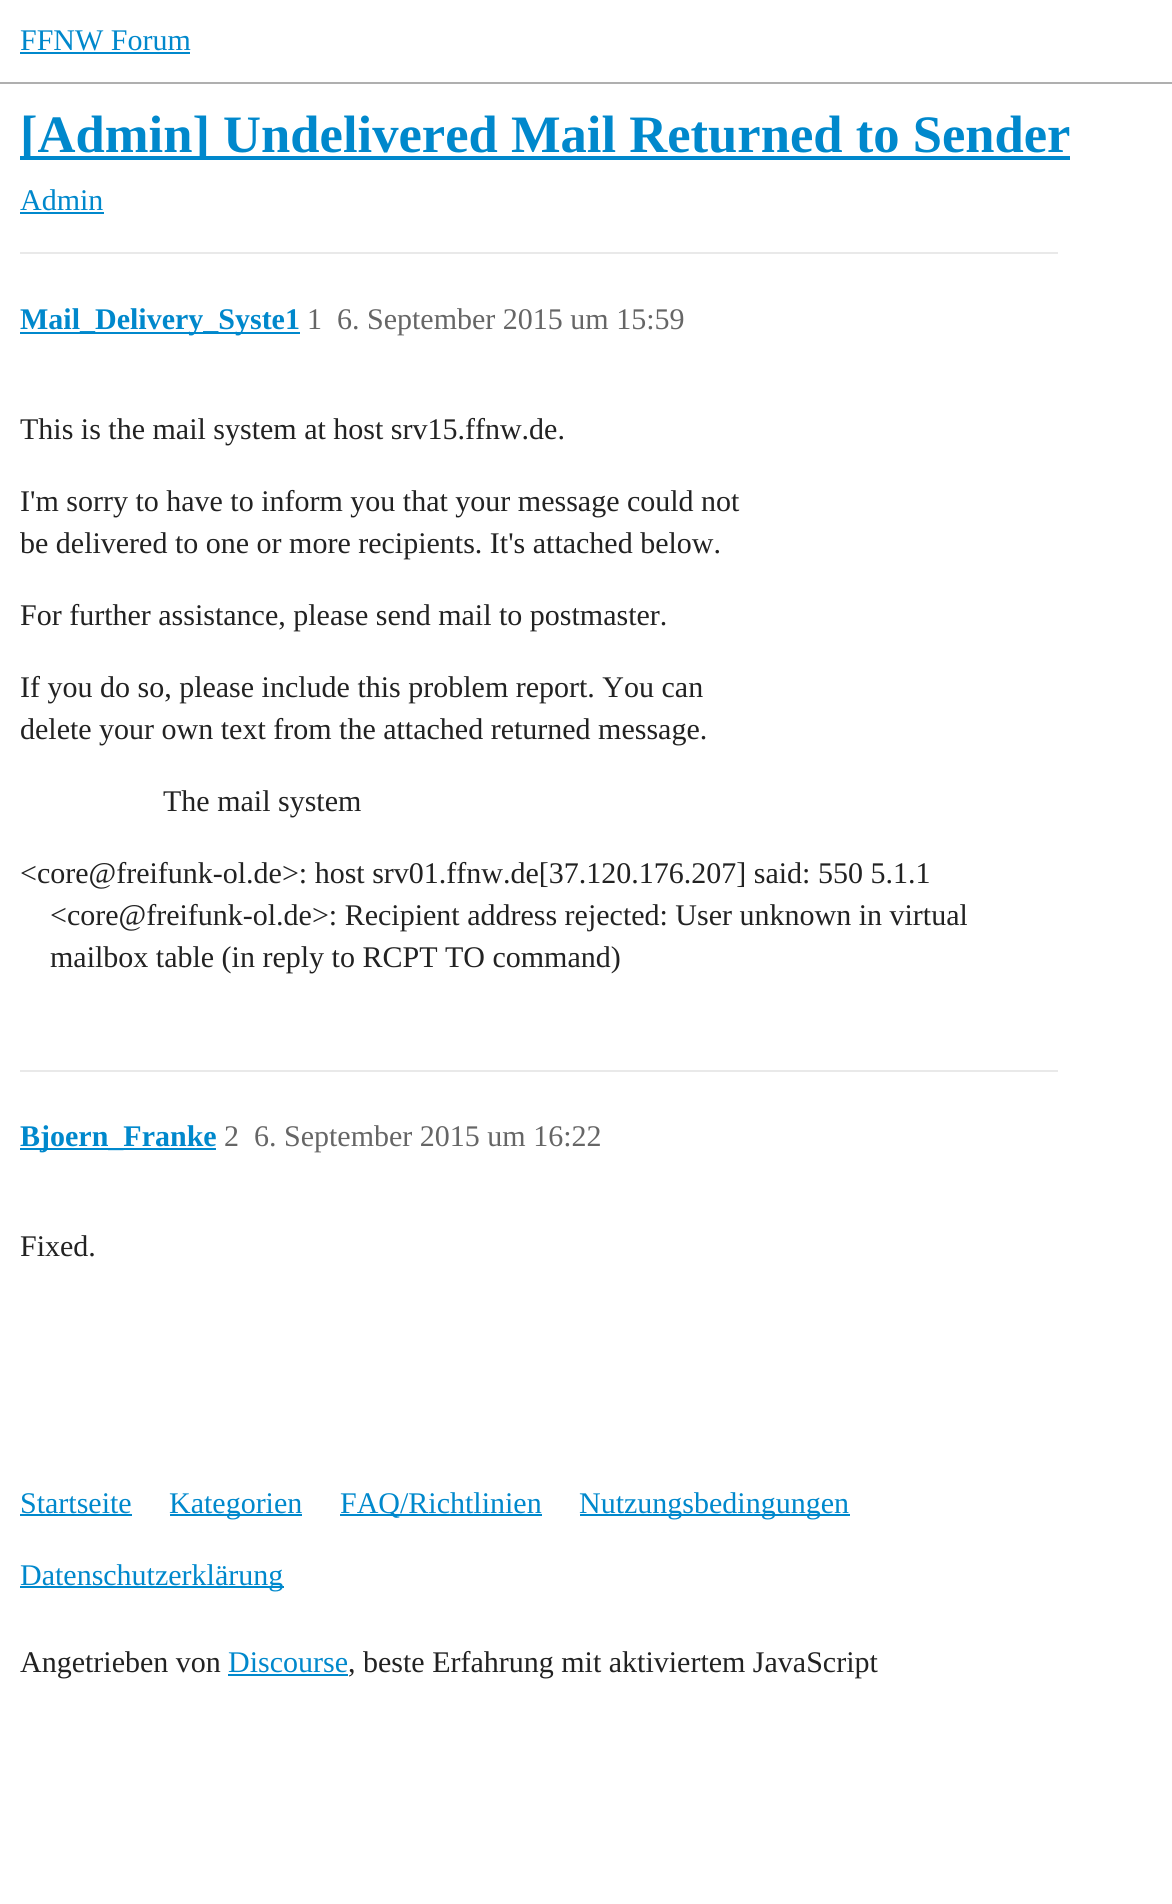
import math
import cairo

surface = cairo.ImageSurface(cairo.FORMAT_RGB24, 1172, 1904)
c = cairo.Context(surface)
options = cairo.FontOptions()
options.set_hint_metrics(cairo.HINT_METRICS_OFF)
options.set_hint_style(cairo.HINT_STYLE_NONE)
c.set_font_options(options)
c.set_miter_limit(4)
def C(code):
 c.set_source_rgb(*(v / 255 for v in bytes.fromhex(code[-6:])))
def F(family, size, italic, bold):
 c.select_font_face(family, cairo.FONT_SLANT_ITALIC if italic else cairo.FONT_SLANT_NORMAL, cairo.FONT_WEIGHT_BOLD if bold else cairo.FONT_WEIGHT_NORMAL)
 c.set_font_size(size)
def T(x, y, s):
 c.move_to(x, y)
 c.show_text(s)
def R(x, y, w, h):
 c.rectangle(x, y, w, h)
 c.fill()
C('ffffff')
c.paint()
C('afafaf')
R(0,82,1172,2)
F('Liberation Serif',30,0,0)
C('0088cc')
T(20,50,'FFNW Forum')
R(20,52,170,2)
R(20,156,1050,4)
F('Liberation Serif',52.6,0,1)
T(20,152,'[Admin] Undelivered Mail Returned to Sender')
F('Liberation Serif',30,0,0)
T(20,210,'Admin')
R(20,212,84,2)
C('e9e9e9')
R(20,252,1038,2)
C('0088cc')
R(20,332,280,2)
F('Liberation Serif',30,0,1)
T(20,329,'Mail_Delivery_Syste1')
F('Liberation Serif',30,0,0)
C('666666')
T(307,329,'1')
T(337,329,'6. September 2015 um 15:59')
C('222222')
T(20,439,'This is the mail system at host srv15.ffnw.de.')
T(20,511,'I\'m sorry to have to inform you that your message could not')
T(20,553,'be delivered to one or more recipients. It\'s attached below.')
T(20,625,'For further assistance, please send mail to postmaster.')
T(20,697,'If you do so, please include this problem report. You can')
T(20,739,'delete your own text from the attached returned message.')
T(163,811,'The mail system')
T(20,883,'<core@freifunk-ol.de>: host srv01.ffnw.de[37.120.176.207] said: 550 5.1.1')
T(50,925,'<core@freifunk-ol.de>: Recipient address rejected: User unknown in virtual')
T(50,967,'mailbox table (in reply to RCPT TO command)')
C('e9e9e9')
R(20,1070,1038,2)
C('0088cc')
R(20,1148,196,2)
F('Liberation Serif',30,0,1)
T(20,1146,'Bjoern_Franke')
F('Liberation Serif',30,0,0)
C('666666')
T(224,1146,'2')
T(254,1146,'6. September 2015 um 16:22')
C('222222')
T(20,1256,'Fixed.')
C('0088cc')
T(20,1513,'Startseite')
R(20,1514,112,2)
R(170,1514,132,2)
T(169,1513,'Kategorien')
R(340,1514,202,2)
T(340,1513,'FAQ/Richtlinien')
R(580,1514,270,2)
T(579,1513,'Nutzungsbedingungen')
R(20,1586,264,2)
T(20,1585,'Datenschutzerklärung')
C('222222')
T(20,1672,'Angetrieben von')
C('0088cc')
T(228,1672,'Discourse')
R(228,1674,120,2)
C('222222')
T(348,1672,', beste Erfahrung mit aktiviertem JavaScript')
surface.write_to_png('o.png')
